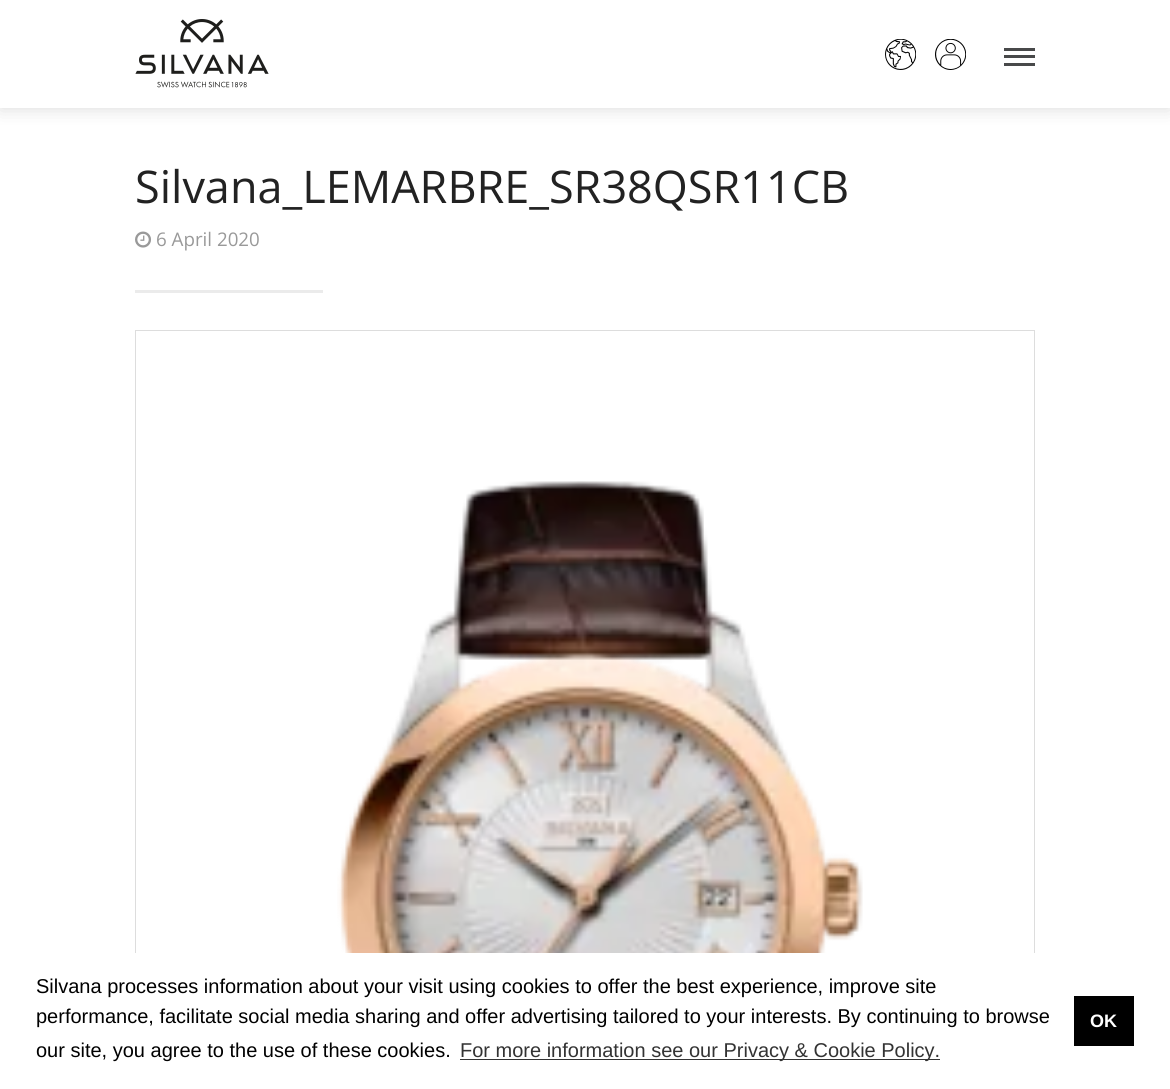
import math
import cairo

surface = cairo.ImageSurface(cairo.FORMAT_RGB24, 1170, 1089)
c = cairo.Context(surface)
options = cairo.FontOptions()
options.set_hint_metrics(cairo.HINT_METRICS_OFF)
options.set_hint_style(cairo.HINT_STYLE_NONE)
c.set_font_options(options)
c.set_miter_limit(4)
def C(code):
 c.set_source_rgb(*(v / 255 for v in bytes.fromhex(code[-6:])))
def F(family, size, italic, bold):
 c.select_font_face(family, cairo.FONT_SLANT_ITALIC if italic else cairo.FONT_SLANT_NORMAL, cairo.FONT_WEIGHT_BOLD if bold else cairo.FONT_WEIGHT_NORMAL)
 c.set_font_size(size)
def T(x, y, s):
 c.move_to(x, y)
 c.show_text(s)
def R(x, y, w, h):
 c.rectangle(x, y, w, h)
 c.fill()
def Q(x, y, w, h, r):
 c.new_sub_path()
 for i, (u, v) in enumerate([(x + w - r, y + h - r), (x + r, y + h - r), (x + r, y + r), (x + w - r, y + r)]):
  c.arc(u, v, r, i * math.pi / 2, (i + 1) * math.pi / 2)
 c.close_path()
def S(x, y, w, h, r, blur, alpha):
 c.push_group_with_content(cairo.CONTENT_ALPHA)
 c.set_operator(cairo.OPERATOR_SOURCE)
 for i in range(15, -16, -2):
  e = blur * i / 6
  if min(w, h) + 2 * e > 0:
   c.set_source_rgba(0, 0, 0, alpha * math.erfc((i - 1) / 8.5) / 2)
   Q(x - e, y - e, w + 2 * e, h + 2 * e, max(0, min(r + e + blur * .6, min(w, h) / 2 + e)))
   c.fill()
 c.mask(c.pop_group())
def I(path, x, y, w, h):
 c.save()
 c.set_source_surface(cairo.ImageSurface.create_from_png(path), x, y)
 c.rectangle(x, y, w, h)
 c.fill()
 c.restore()
C('ffffff')
c.paint()
C('000000')
S(0,0,1170,108,0,9.5,.15)
C('ffffff')
R(0,0,1170,108)
I('1.png',135,19,134,69)
I('2.png',885,39,31,31)
I('3.png',935,39,31,31)
C('48494a')
R(1004,55,31,3)
R(1004,48,31,3)
R(1004,63,31,3)
F('Open Sans',45,0,0)
C('222222')
T(135,203,'Silvana_LEMARBRE_SR38QSR11CB')
I('4.png',135,231,16,17)
F('Open Sans',18.75,0,0)
C('999999')
T(156,246,'6 April 2020')
C('ebebeb')
R(135,290,188,3)
c.rectangle(135.5,330.5,899,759)
C('dddddd')
c.set_line_width(1)
c.stroke()
I('5.png',337,481,526,472)
C('ffffff')
R(135,953,900,136)
F('Liberation Sans',20,0,0)
C('000000')
T(36,993,'Silvana processes information about your visit using cookies to offer the best experience, improve site')
T(36,1023,'performance, facilitate social media sharing and offer advertising tailored to your interests. By continuing to browse')
T(36,1057,'our site, you agree to the use of these cookies.')
C('333333')
R(460,1059,480,1)
T(460,1057,'For more information see our Privacy & Cookie Policy.')
C('000000')
R(1074,996,60,50)
F('Liberation Sans',18,0,1)
C('ffffff')
T(1090,1027,'OK')
surface.write_to_png('o.png')
